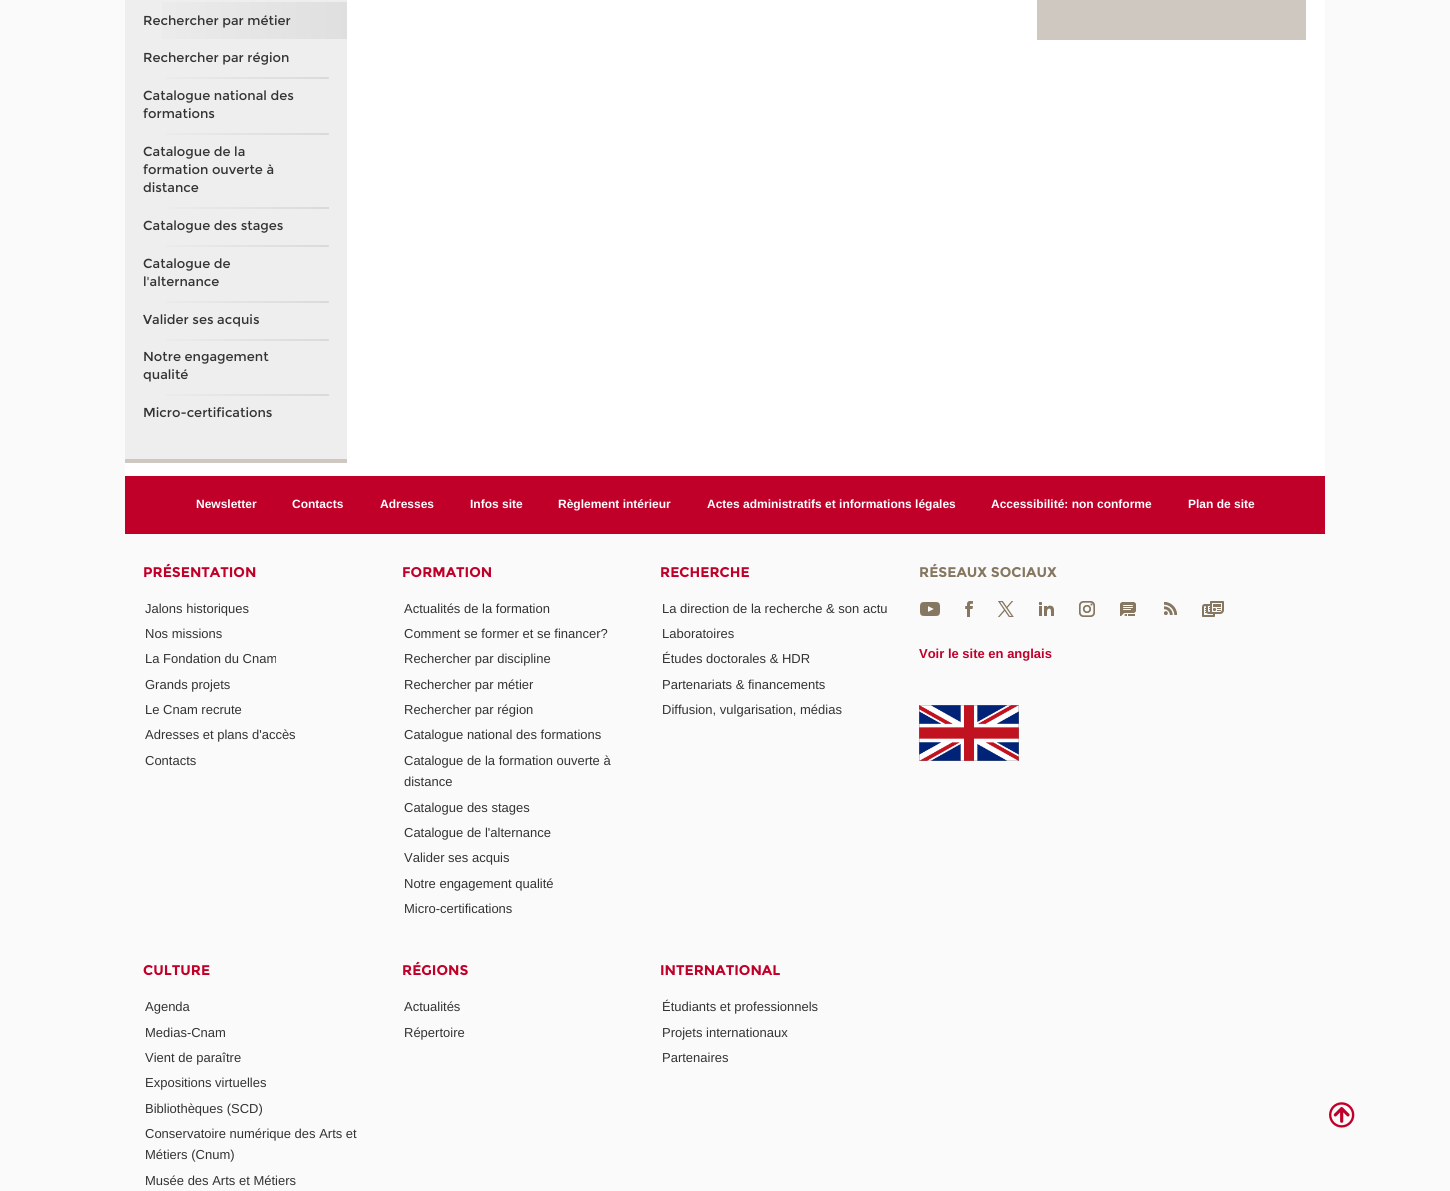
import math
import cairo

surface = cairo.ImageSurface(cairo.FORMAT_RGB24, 1450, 1191)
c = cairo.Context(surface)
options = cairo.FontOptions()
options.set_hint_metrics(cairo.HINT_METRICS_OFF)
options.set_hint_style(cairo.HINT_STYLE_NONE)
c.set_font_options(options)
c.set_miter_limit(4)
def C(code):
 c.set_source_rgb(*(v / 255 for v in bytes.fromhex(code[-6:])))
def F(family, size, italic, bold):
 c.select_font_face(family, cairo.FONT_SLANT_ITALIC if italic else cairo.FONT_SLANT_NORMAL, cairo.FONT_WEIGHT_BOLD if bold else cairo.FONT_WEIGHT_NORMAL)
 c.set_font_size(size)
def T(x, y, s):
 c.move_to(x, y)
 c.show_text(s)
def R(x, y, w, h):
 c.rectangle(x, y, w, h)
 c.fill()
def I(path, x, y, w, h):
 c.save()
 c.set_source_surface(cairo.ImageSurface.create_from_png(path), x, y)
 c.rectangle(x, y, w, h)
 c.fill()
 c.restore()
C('fafafa')
c.paint()
C('ffffff')
R(125,0,1200,476)
C('eeeeee')
R(125,0,222,459)
C('cfc8c0')
R(125,459,222,4)
gradient = cairo.LinearGradient(125,21,347,20)
gradient.add_color_stop_rgba(0,0.933,0.933,0.933,1)
gradient.add_color_stop_rgba(1,0.875,0.875,0.875,1)
c.set_source(gradient)
R(162,2,185,37)
F('Montserrat',13,0,0)
C('333333')
T(143,25,'Rechercher par métier')
T(143,62,'Rechercher par région')
gradient = cairo.LinearGradient(143,78,329,78)
gradient.add_color_stop_rgba(0,0.933,0.933,0.933,1)
gradient.add_color_stop_rgba(1,0.855,0.855,0.855,1)
c.set_source(gradient)
R(166,77,163,2)
C('333333')
T(143,100,'Catalogue national des')
T(143,118,'formations')
gradient = cairo.LinearGradient(143,134,329,134)
gradient.add_color_stop_rgba(0,0.933,0.933,0.933,1)
gradient.add_color_stop_rgba(1,0.855,0.855,0.855,1)
c.set_source(gradient)
R(166,133,163,2)
C('333333')
T(143,156,'Catalogue de la')
T(143,174,'formation ouverte à')
T(143,192,'distance')
gradient = cairo.LinearGradient(143,208,329,208)
gradient.add_color_stop_rgba(0,0.933,0.933,0.933,1)
gradient.add_color_stop_rgba(1,0.855,0.855,0.855,1)
c.set_source(gradient)
R(166,207,163,2)
C('333333')
T(143,230,'Catalogue des stages')
gradient = cairo.LinearGradient(143,246,329,246)
gradient.add_color_stop_rgba(0,0.933,0.933,0.933,1)
gradient.add_color_stop_rgba(1,0.855,0.855,0.855,1)
c.set_source(gradient)
R(166,245,163,2)
C('333333')
T(143,268,'Catalogue de')
T(143,286,'l\'alternance')
gradient = cairo.LinearGradient(143,302,329,302)
gradient.add_color_stop_rgba(0,0.933,0.933,0.933,1)
gradient.add_color_stop_rgba(1,0.855,0.855,0.855,1)
c.set_source(gradient)
R(166,301,163,2)
C('333333')
T(143,324,'Valider ses acquis')
gradient = cairo.LinearGradient(143,340,329,340)
gradient.add_color_stop_rgba(0,0.933,0.933,0.933,1)
gradient.add_color_stop_rgba(1,0.855,0.855,0.855,1)
c.set_source(gradient)
R(166,339,163,2)
C('333333')
T(143,361,'Notre engagement')
T(143,379,'qualité')
gradient = cairo.LinearGradient(143,395,329,395)
gradient.add_color_stop_rgba(0,0.933,0.933,0.933,1)
gradient.add_color_stop_rgba(1,0.855,0.855,0.855,1)
c.set_source(gradient)
R(166,394,163,2)
C('333333')
T(143,417,'Micro-certifications')
C('cfc8c0')
R(1037,0,269,40)
C('c1002a')
R(125,476,1200,58)
F('Liberation Sans',12,0,1)
C('ffffff')
T(196,508,'Newsletter')
T(292,508,'Contacts')
T(380,508,'Adresses')
T(470,508,'Infos site')
T(558,508,'Règlement intérieur')
T(707,508,'Actes administratifs et informations légales')
T(991,508,'Accessibilité: non conforme')
T(1188,508,'Plan de site')
F('Montserrat',14,0,1)
C('c1002a')
T(143,577,'PRÉSENTATION')
F('Liberation Sans',13,0,0)
C('333333')
T(145,613,'Jalons historiques')
T(145,638,'Nos missions')
T(145,663,'La Fondation du Cnam')
T(145,689,'Grands projets')
T(145,714,'Le Cnam recrute')
T(145,739,'Adresses et plans d\'accès')
T(145,765,'Contacts')
F('Montserrat',14,0,1)
C('c1002a')
T(402,577,'FORMATION')
F('Liberation Sans',13,0,0)
C('333333')
T(404,613,'Actualités de la formation')
T(404,638,'Comment se former et se financer?')
T(404,663,'Rechercher par discipline')
T(404,689,'Rechercher par métier')
T(404,714,'Rechercher par région')
T(404,739,'Catalogue national des formations')
T(404,765,'Catalogue de la formation ouverte à')
T(404,786,'distance')
T(404,812,'Catalogue des stages')
T(404,837,'Catalogue de l\'alternance')
T(404,862,'Valider ses acquis')
T(404,888,'Notre engagement qualité')
T(404,913,'Micro-certifications')
F('Montserrat',14,0,1)
C('c1002a')
T(660,577,'RECHERCHE')
F('Liberation Sans',13,0,0)
C('333333')
T(662,613,'La direction de la recherche & son actu')
T(662,638,'Laboratoires')
T(662,663,'Études doctorales & HDR')
T(662,689,'Partenariats & financements')
T(662,714,'Diffusion, vulgarisation, médias')
F('Montserrat',14,0,1)
C('c1002a')
T(143,975,'CULTURE')
F('Liberation Sans',13,0,0)
C('333333')
T(145,1011,'Agenda')
T(145,1037,'Medias-Cnam')
T(145,1062,'Vient de paraître')
T(145,1087,'Expositions virtuelles')
T(145,1113,'Bibliothèques (SCD)')
T(145,1138,'Conservatoire numérique des Arts et')
T(145,1159,'Métiers (Cnum)')
T(145,1185,'Musée des Arts et Métiers')
F('Montserrat',14,0,1)
C('c1002a')
T(402,975,'RÉGIONS')
F('Liberation Sans',13,0,0)
C('333333')
T(404,1011,'Actualités')
T(404,1037,'Répertoire')
F('Montserrat',14,0,1)
C('c1002a')
T(660,975,'INTERNATIONAL')
F('Liberation Sans',13,0,0)
C('333333')
T(662,1011,'Étudiants et professionnels')
T(662,1037,'Projets internationaux')
T(662,1062,'Partenaires')
F('Montserrat',14,0,1)
C('857761')
T(919,577,'RÉSEAUX SOCIAUX')
R(920,602,20,14)
I('1.png',919,601,22,16)
R(965,601,8,16)
I('2.png',964,601,10,16)
R(997,601,17,16)
I('3.png',997,601,18,16)
R(1039,602,15,14)
I('4.png',1038,601,17,16)
R(1078,601,17,16)
I('5.png',1078,601,18,16)
R(1120,602,16,14)
I('6.png',1119,601,18,16)
R(1164,602,13,13)
I('7.png',1161,601,18,16)
R(1202,601,22,16)
I('8.png',1202,601,22,16)
F('Liberation Sans',13,0,1)
C('c1002a')
T(919,658,'Voir le site en anglais')
I('9.png',919,705,100,56)
I('10.png',1329,1102,26,26)
surface.write_to_png('o.png')
